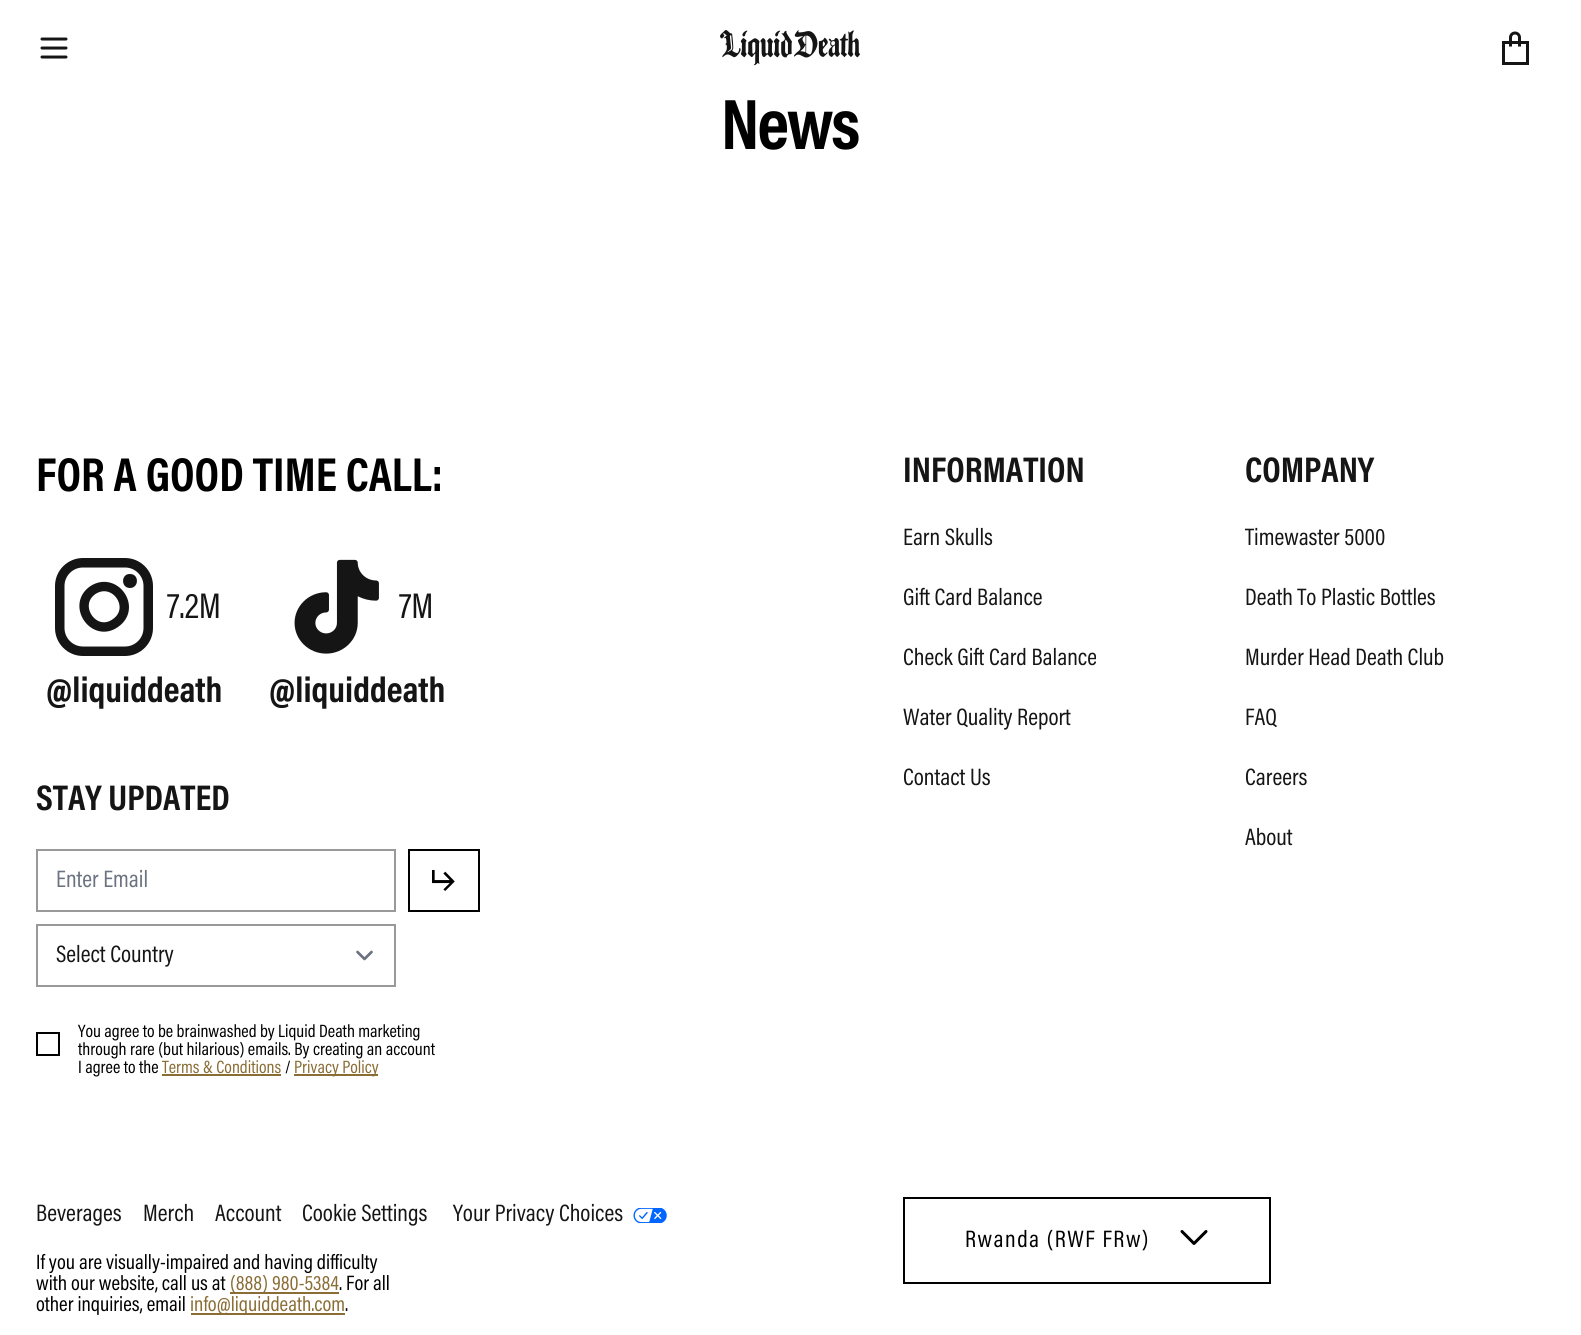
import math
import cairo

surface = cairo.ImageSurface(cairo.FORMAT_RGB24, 1581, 1335)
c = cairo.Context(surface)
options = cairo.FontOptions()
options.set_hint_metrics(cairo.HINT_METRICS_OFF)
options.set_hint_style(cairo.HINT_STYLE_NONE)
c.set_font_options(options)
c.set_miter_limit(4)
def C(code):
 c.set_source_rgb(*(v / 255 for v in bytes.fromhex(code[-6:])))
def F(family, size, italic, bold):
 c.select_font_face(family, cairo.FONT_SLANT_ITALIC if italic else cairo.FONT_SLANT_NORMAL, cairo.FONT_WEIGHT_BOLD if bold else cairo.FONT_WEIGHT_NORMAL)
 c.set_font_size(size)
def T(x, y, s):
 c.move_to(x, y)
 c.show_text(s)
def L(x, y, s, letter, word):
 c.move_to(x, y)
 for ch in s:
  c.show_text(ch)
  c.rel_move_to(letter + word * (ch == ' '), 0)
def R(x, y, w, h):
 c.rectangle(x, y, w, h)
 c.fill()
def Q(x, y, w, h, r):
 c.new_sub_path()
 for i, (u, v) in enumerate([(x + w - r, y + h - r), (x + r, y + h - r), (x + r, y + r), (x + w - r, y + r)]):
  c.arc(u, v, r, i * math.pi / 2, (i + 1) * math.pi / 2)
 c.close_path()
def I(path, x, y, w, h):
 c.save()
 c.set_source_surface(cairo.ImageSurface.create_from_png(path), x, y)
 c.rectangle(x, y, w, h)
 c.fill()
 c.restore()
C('ffffff')
c.paint()
c.new_path()
c.move_to(42,39)
c.line_to(66,39)
c.move_to(42,48)
c.line_to(66,48)
c.move_to(42,57)
c.line_to(66,57)
C('151515')
c.set_line_width(3)
c.set_line_cap(cairo.LINE_CAP_ROUND)
c.set_line_join(cairo.LINE_JOIN_ROUND)
c.stroke()
I('1.png',720,30,140,36)
c.rectangle(1503.5,42.5,24,21)
c.set_line_cap(cairo.LINE_CAP_BUTT)
c.set_line_join(cairo.LINE_JOIN_MITER)
c.stroke()
c.new_path()
c.move_to(1510.5,46.5)
c.line_to(1510.5,37.5)
c.curve_to(1510.5,35,1512.5,33,1515,33)
c.curve_to(1517.5,33,1519.5,35,1519.5,37.5)
c.line_to(1519.5,46.5)
c.stroke()
F('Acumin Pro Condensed',72,0,1)
C('000000')
L(721,149,'News',-2,0)
F('Acumin Pro Condensed',48,0,1)
T(36,491,'FOR A GOOD TIME CALL:')
Q(59.75,562.75,88.5,88.5,23.25)
C('151515')
c.set_line_width(9.5)
c.stroke()
c.new_path()
c.move_to(130,588)
c.curve_to(120.5,588,121,573.5,130,574)
c.curve_to(139.5,574,139,588,130,588)
c.close_path()
c.fill()
c.new_path()
c.move_to(93,590)
c.curve_to(115,576,137,608,115.5,623)
c.curve_to(94,638.5,71,605,93,590)
c.close_path()
c.set_line_width(9.4)
c.stroke()
F('Acumin Pro Condensed',36,0,0)
T(167,618,'7.2M')
F('Acumin Pro Condensed',36,0,1)
T(46,702,'@liquiddeath')
I('2.png',294,559,85,95)
F('Acumin Pro Condensed',36,0,0)
T(399,618,'7M')
F('Acumin Pro Condensed',36,0,1)
T(269,702,'@liquiddeath')
T(36,810,'STAY UPDATED')
c.rectangle(37,850,358,61)
C('999999')
c.set_line_width(2)
c.stroke()
F('Acumin Pro Condensed',24,0,0)
C('6b7280')
T(56,887,'Enter Email')
c.rectangle(409,850,70,61)
C('000000')
c.stroke()
I('3.png',432,870,23,21)
c.new_path()
c.move_to(357.5,952)
c.line_to(364.5,959)
c.line_to(371.5,952)
C('6b7280')
c.set_line_width(2.7)
c.set_line_cap(cairo.LINE_CAP_ROUND)
c.set_line_join(cairo.LINE_JOIN_ROUND)
c.stroke()
c.rectangle(37,925,358,61)
C('999999')
c.set_line_width(2)
c.set_line_cap(cairo.LINE_CAP_BUTT)
c.set_line_join(cairo.LINE_JOIN_MITER)
c.stroke()
C('151515')
T(56,962,'Select Country')
c.rectangle(37,1033,22,22)
C('000000')
c.stroke()
F('Acumin Pro Condensed',18,0,0)
T(78,1037,'You agree to be brainwashed by Liquid Death marketing')
T(78,1055,'through rare (but hilarious) emails. By creating an account')
T(78,1073,'I agree to the')
C('8a6d35')
T(162,1073,'Terms & Conditions')
R(162,1074,119,2)
C('000000')
T(285,1073,'/')
C('8a6d35')
R(294,1074,84,2)
T(294,1073,'Privacy Policy')
F('Acumin Pro Condensed',36,0,1)
C('151515')
T(903,482,'INFORMATION')
F('Acumin Pro Condensed',24,0,0)
T(903,545,'Earn Skulls')
T(903,605,'Gift Card Balance')
T(903,665,'Check Gift Card Balance')
T(903,725,'Water Quality Report')
T(903,785,'Contact Us')
F('Acumin Pro Condensed',36,0,1)
T(1245,482,'COMPANY')
F('Acumin Pro Condensed',24,0,0)
T(1245,545,'Timewaster 5000')
T(1245,605,'Death To Plastic Bottles')
T(1245,665,'Murder Head Death Club')
T(1245,725,'FAQ')
T(1245,785,'Careers')
T(1245,845,'About')
T(36,1221,'Beverages')
T(143,1221,'Merch')
T(215,1221,'Account')
T(302,1221,'Cookie Settings')
T(453,1221,'Your Privacy Choices')
I('4.png',633,1208,34,15)
F('Acumin Pro Condensed',21,0,0)
C('000000')
T(36,1269,'If you are visually-impaired and having difficulty')
T(36,1290,'with our website, call us at')
C('8a6d35')
R(230,1292,109,2)
T(230,1290,'(888) 980-5384')
C('000000')
T(339,1290,'. For all')
T(36,1311,'other inquiries, email')
C('8a6d35')
R(191,1313,154,2)
T(190,1311,'info@liquiddeath.com')
C('000000')
T(345,1311,'.')
c.rectangle(904,1198,366,85)
c.stroke()
F('Acumin Pro Condensed',24,0,0)
L(965,1247,'Rwanda (RWF FRw)',1.5,0)
I('5.png',1180,1230,28,15)
surface.write_to_png('o.png')
